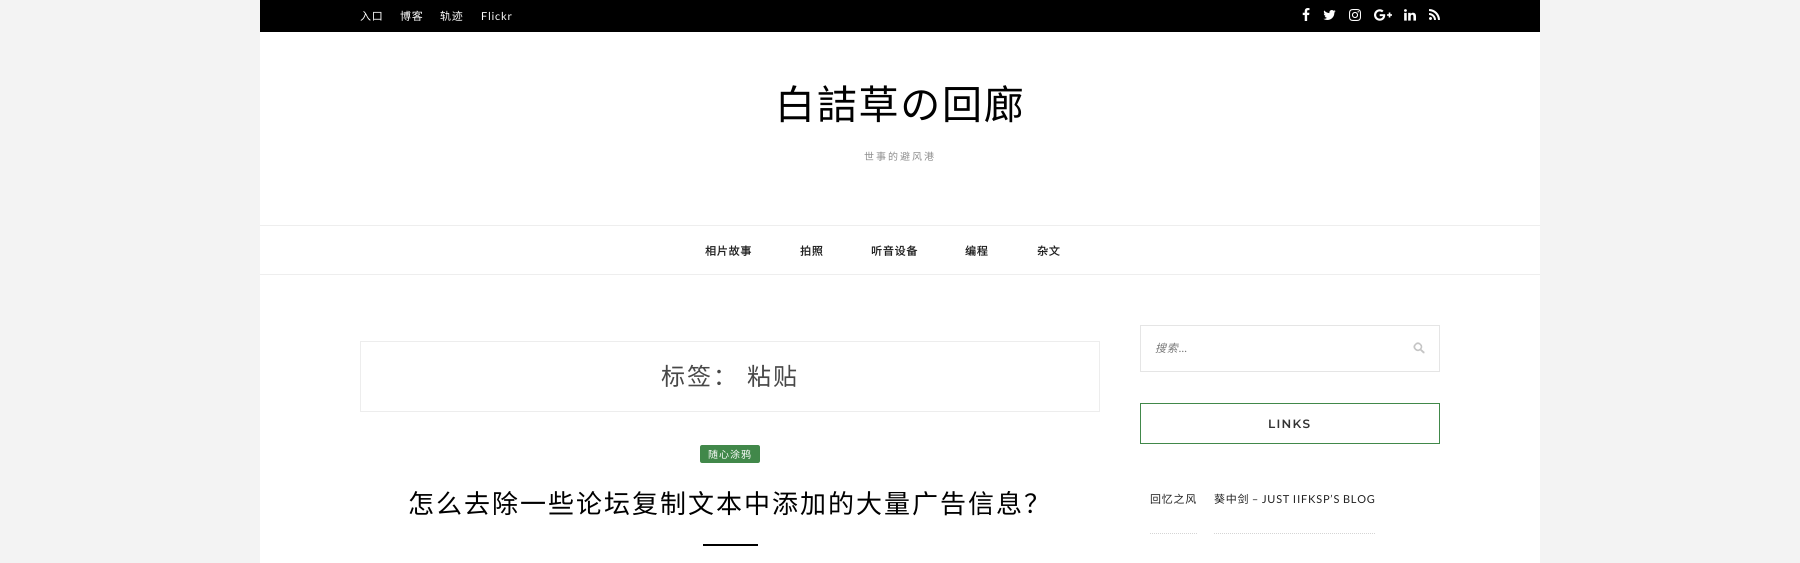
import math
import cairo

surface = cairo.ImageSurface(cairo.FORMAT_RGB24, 1800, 563)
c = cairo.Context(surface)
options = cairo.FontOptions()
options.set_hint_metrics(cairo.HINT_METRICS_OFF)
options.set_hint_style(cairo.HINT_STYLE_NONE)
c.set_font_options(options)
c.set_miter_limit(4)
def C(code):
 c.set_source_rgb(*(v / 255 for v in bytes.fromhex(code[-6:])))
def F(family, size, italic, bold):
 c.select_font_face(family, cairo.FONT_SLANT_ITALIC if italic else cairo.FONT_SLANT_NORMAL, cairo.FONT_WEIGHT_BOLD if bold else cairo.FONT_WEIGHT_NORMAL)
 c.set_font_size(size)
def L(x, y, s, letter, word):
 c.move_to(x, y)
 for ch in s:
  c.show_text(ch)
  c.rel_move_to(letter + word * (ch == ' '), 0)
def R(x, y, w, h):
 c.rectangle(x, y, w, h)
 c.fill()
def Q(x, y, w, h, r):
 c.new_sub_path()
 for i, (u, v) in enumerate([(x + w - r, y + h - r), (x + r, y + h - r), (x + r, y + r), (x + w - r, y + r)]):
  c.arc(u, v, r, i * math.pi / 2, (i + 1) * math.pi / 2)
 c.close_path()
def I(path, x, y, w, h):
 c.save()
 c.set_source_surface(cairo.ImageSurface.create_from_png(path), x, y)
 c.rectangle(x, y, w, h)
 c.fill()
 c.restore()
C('f3f3f3')
c.paint()
C('ffffff')
R(260,32,1280,531)
C('000000')
R(260,0,1280,32)
F('Noto Sans CJK SC',11,0,0)
C('ffffff')
L(360,20,'入口',.75,0)
L(400,20,'博客',.75,0)
L(440,20,'轨迹',.75,0)
F('Lato',11,0,0)
L(481,20,'Flickr',.75,0)
I('1.png',1302,8,8,13)
I('2.png',1323,10,13,10)
I('3.png',1349,9,12,12)
I('4.png',1374,9,18,12)
I('5.png',1404,9,12,12)
I('6.png',1429,9,11,11)
F('Noto Sans CJK SC',40,0,0)
C('000000')
L(775,119,'白詰草の回廊',1.75,0)
F('Noto Sans CJK SC',10,0,0)
C('8e8e8e')
L(864,160,'世事的避风港',2,0)
C('eeeeee')
R(260,225,1280,1)
R(260,274,1280,1)
F('Noto Sans CJK SC',11,0,1)
C('212121')
L(705,255,'相片故事',.75,0)
L(800,255,'拍照',.75,0)
L(871,255,'听音设备',.75,0)
L(965,255,'编程',.75,0)
L(1037,255,'杂文',.75,0)
c.rectangle(360.5,341.5,739,70)
C('ededed')
c.set_line_width(1)
c.stroke()
F('Noto Sans CJK SC',24,0,0)
C('484848')
L(661,385,'标签：',2,0)
L(747,385,'粘贴',2,0)
C('41884a')
Q(700,445,60,18,2)
c.fill()
F('Noto Sans CJK SC',10,0,0)
C('ffffff')
L(708,458,'随心涂鸦',1,0)
F('Noto Sans CJK SC',26,0,0)
C('000000')
L(408,513,'怎么去除一些论坛复制文本中添加的大量广告信息？',2,0)
R(703,544,55,2)
I('7.png',1413,342,12,12)
c.rectangle(1140.5,325.5,299,46)
C('e5e5e5')
c.stroke()
F('Noto Sans CJK SC',11,1,0)
C('757575')
L(1155,352,'搜索',.75,0)
F('Lato',11,1,0)
L(1179,352,'…',.75,0)
c.rectangle(1140.5,403.5,299,40)
C('41884a')
c.stroke()
F('Montserrat SemiBold',12,0,0)
C('333333')
L(1268,428,'LINKS',1.25,0)
c.new_path()
c.move_to(1150,533.5)
c.line_to(1197,533.5)
C('d5d5d5')
c.set_dash([1,1])
c.stroke()
F('Noto Sans CJK SC',11,0,0)
C('212121')
L(1150,503,'回忆之风',.75,0)
c.new_path()
c.move_to(1214,533.5)
c.line_to(1375,533.5)
C('d5d5d5')
c.stroke()
C('212121')
L(1214,503,'葵中剑',.75,0)
F('Lato',11,0,0)
L(1252,503,'– JUST IIFKSP’S BLOG',.75,0)
surface.write_to_png('o.png')
